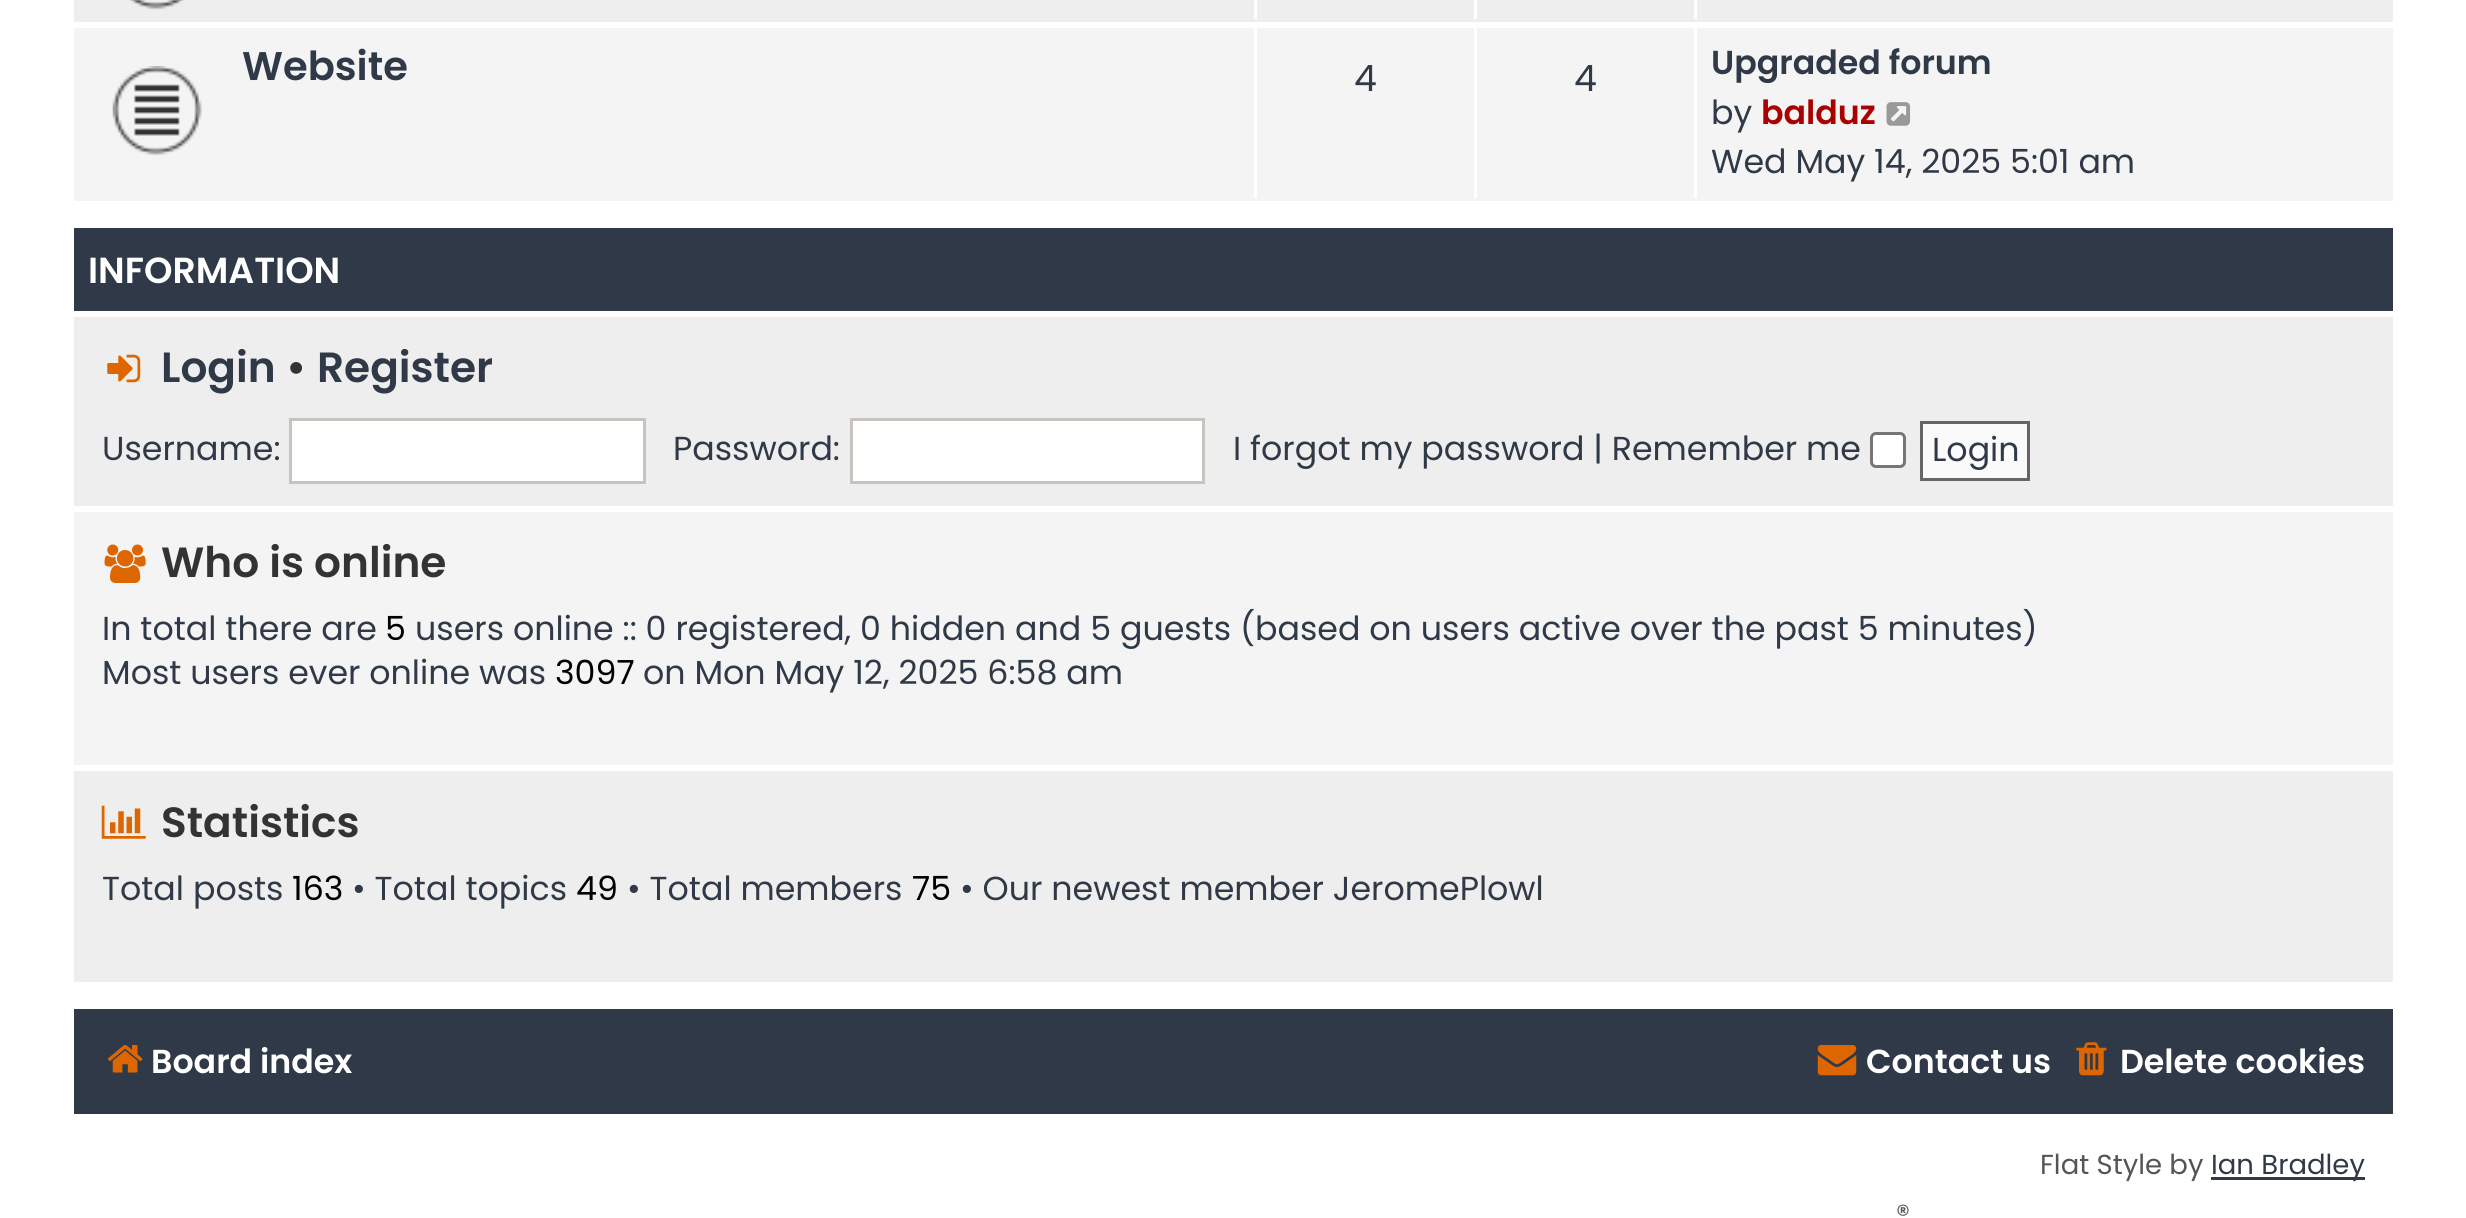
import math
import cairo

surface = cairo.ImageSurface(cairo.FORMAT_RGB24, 2466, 1218)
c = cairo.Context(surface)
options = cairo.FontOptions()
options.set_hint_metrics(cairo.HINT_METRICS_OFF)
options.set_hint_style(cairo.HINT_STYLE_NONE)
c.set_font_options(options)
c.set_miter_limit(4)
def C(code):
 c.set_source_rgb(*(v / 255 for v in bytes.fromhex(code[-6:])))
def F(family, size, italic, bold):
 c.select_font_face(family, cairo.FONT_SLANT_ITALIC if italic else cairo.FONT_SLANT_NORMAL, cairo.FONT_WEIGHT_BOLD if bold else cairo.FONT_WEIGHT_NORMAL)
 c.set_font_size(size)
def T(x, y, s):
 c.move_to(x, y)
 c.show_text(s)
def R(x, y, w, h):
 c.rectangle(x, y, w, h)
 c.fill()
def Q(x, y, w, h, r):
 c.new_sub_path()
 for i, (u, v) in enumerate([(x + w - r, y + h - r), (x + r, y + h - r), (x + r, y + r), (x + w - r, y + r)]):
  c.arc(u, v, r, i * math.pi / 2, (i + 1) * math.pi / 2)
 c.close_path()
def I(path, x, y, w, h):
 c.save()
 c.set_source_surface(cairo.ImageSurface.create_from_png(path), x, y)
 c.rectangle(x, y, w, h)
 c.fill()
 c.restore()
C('ffffff')
c.paint()
C('eeeeee')
R(74,0,2319,22)
I('1.png',129,0,56,10)
C('ffffff')
R(1254,0,3,19)
R(1474,0,3,19)
R(1694,0,3,19)
C('f4f4f4')
R(74,28,2319,173)
I('2.png',112,66,90,89)
F('Poppins SemiBold',40,0,0)
C('2f3947')
T(242,80,'Website')
C('ffffff')
R(1254,28,3,170)
F('Poppins',36.25,0,0)
C('2f3947')
T(1354,91,'4')
C('ffffff')
R(1474,28,3,170)
C('2f3947')
T(1574,91,'4')
C('ffffff')
R(1694,28,3,170)
F('Poppins SemiBold',33.25,0,0)
C('2f3947')
T(1711,74,'Upgraded forum')
F('Poppins',33.25,0,0)
T(1711,124,'by')
F('Poppins SemiBold',33.25,0,0)
C('aa0000')
T(1761,124,'balduz')
I('3.png',1886,102,25,24)
F('Poppins',33.25,0,0)
C('2f3947')
T(1711,173,'Wed May 14, 2025 5:01 am')
R(74,228,2319,83)
F('Poppins SemiBold',36.25,0,0)
C('ffffff')
T(88,283,'INFORMATION')
C('eeeeee')
R(74,317,2319,665)
I('4.png',107,354,34,29)
F('Poppins SemiBold',42.25,0,0)
C('2f3947')
T(161,382,'Login')
C('333333')
T(286,382,'•')
C('2f3947')
T(317,382,'Register')
F('Poppins',33.25,0,0)
T(102,460,'Username:')
C('ffffff')
c.rectangle(290.5,419.5,354,63)
c.fill_preserve()
C('c7c3bf')
c.set_line_width(3)
c.stroke()
C('2f3947')
T(673,460,'Password:')
C('ffffff')
c.rectangle(851.5,419.5,352,63)
c.fill_preserve()
C('c7c3bf')
c.stroke()
C('2f3947')
T(1233,460,'I forgot my password | Remember me')
C('ffffff')
Q(1871.5,433.5,33,33,4.5)
c.fill_preserve()
C('767676')
c.stroke()
C('fafafa')
c.rectangle(1921.5,422.5,107,57)
c.fill_preserve()
C('666666')
c.stroke()
C('2f3947')
T(1932,461,'Login')
C('f4f4f4')
R(74,512,2319,253)
C('ffffff')
R(74,506,2319,6)
I('5.png',104,544,42,39)
F('Poppins SemiBold',42.25,0,0)
C('333333')
T(161,577,'Who is online')
F('Poppins',33.25,0,0)
C('2f3947')
T(102,640,'In total there are')
C('000000')
T(385,640,'5')
C('2f3947')
T(415,640,'users online :: 0 registered, 0 hidden and 5 guests (based on users active over the past 5 minutes)')
T(102,684,'Most users ever online was')
C('000000')
T(555,684,'3097')
C('2f3947')
T(643,684,'on Mon May 12, 2025 6:58 am')
C('ffffff')
R(74,765,2319,6)
I('6.png',101,805,45,34)
F('Poppins SemiBold',42.25,0,0)
C('333333')
T(161,837,'Statistics')
F('Poppins',33.25,0,0)
C('2f3947')
T(102,900,'Total posts')
C('000000')
T(292,900,'163')
C('2f3947')
T(352,900,'• Total topics')
C('000000')
T(576,900,'49')
C('2f3947')
T(627,900,'• Total members')
C('000000')
T(912,900,'75')
C('2f3947')
T(960,900,'• Our newest member JeromePlowl')
R(74,1009,2319,105)
I('7.png',107,1045,36,28)
F('Poppins SemiBold',33.25,0,0)
C('ffffff')
T(151,1073,'Board index')
I('8.png',1817,1045,40,31)
T(1866,1073,'Contact us')
I('9.png',2076,1042,31,34)
T(2120,1073,'Delete cookies')
F('Poppins',27.5,0,0)
C('555555')
T(2040,1174,'Flat Style by')
C('2f3947')
R(2211,1177,154,3)
T(2211,1174,'Ian Bradley')
C('555555')
T(1896,1224,'®')
surface.write_to_png('o.png')
